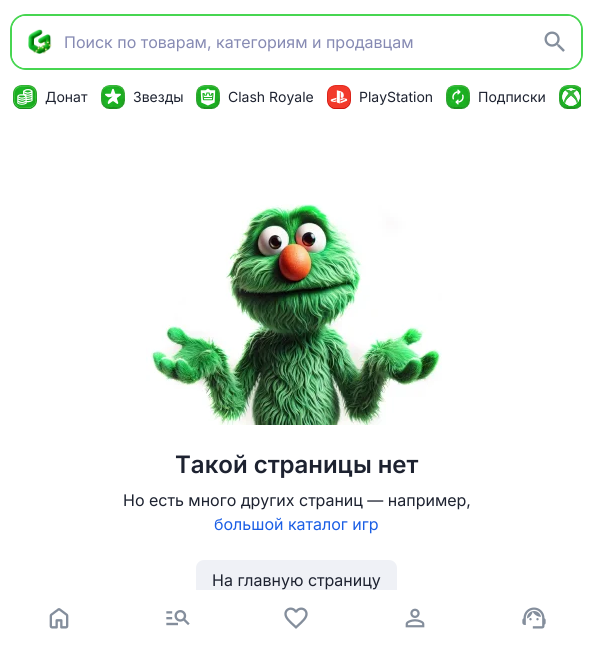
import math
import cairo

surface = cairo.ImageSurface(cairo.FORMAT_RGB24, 593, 646)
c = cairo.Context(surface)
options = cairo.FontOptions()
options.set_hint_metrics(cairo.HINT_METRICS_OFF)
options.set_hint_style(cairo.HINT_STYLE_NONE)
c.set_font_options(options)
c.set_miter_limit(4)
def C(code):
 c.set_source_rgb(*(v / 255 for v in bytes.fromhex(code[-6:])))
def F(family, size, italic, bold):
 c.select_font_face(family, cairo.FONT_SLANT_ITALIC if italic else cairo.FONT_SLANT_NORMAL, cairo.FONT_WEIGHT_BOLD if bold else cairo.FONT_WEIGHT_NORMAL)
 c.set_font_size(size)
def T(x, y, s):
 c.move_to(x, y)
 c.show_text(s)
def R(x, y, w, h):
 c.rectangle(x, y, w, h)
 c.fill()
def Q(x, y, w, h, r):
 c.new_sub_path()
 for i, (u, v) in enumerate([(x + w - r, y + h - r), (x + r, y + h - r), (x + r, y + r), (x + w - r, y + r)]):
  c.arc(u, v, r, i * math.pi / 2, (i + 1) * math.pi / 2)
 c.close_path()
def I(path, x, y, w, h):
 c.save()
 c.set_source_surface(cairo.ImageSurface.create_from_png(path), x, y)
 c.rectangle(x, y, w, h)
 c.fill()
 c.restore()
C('ffffff')
c.paint()
Q(11,15,571,54,15)
C('47d651')
c.stroke()
C('ffffff')
Q(12,16,569,52,14)
c.fill()
Q(12,16,513,52,14)
c.fill()
I('1.png',28,29,24,25)
F('Inter',16,0,0)
C('868ab3')
T(64,48,'Поиск по товарам, категориям и продавцам')
C('ffffff')
c.new_path()
c.move_to(529,16)
c.line_to(567,16)
c.curve_to(574.5,16,581,22.5,581,30)
c.line_to(581,54)
c.curve_to(581,61.5,574.5,68,567,68)
c.line_to(529,68)
c.close_path()
c.fill()
I('2.png',544,31,21,21)
I('3.png',13,85,24,24)
F('Inter',14,0,0)
C('1d2230')
T(45,102,'Донат')
I('4.png',101,85,24,24)
T(133,102,'Звезды')
I('5.png',196,85,24,24)
T(228,102,'Clash Royale')
I('6.png',327,85,24,24)
T(359,102,'PlayStation')
I('7.png',446,85,24,24)
T(478,102,'Подписки')
I('8.png',559,85,22,24)
I('9.png',146,204,296,221)
F('Inter SemiBold',24,0,0)
T(175,473,'Такой страницы нет')
F('Inter',16,0,0)
T(123,506,'Но есть много других страниц — например,')
C('1a5ee5')
T(214,530,'большой каталог игр')
C('eff1f6')
Q(196,560,201,40,8)
c.fill()
C('1d2230')
T(212,586,'На главную страницу')
C('ffffff')
R(196,590,201,10)
I('10.png',49,608,20,21)
I('11.png',166,610,24,16)
I('12.png',284,607,24,22)
I('13.png',405,608,20,20)
I('14.png',522,607,24,22)
surface.write_to_png('o.png')
